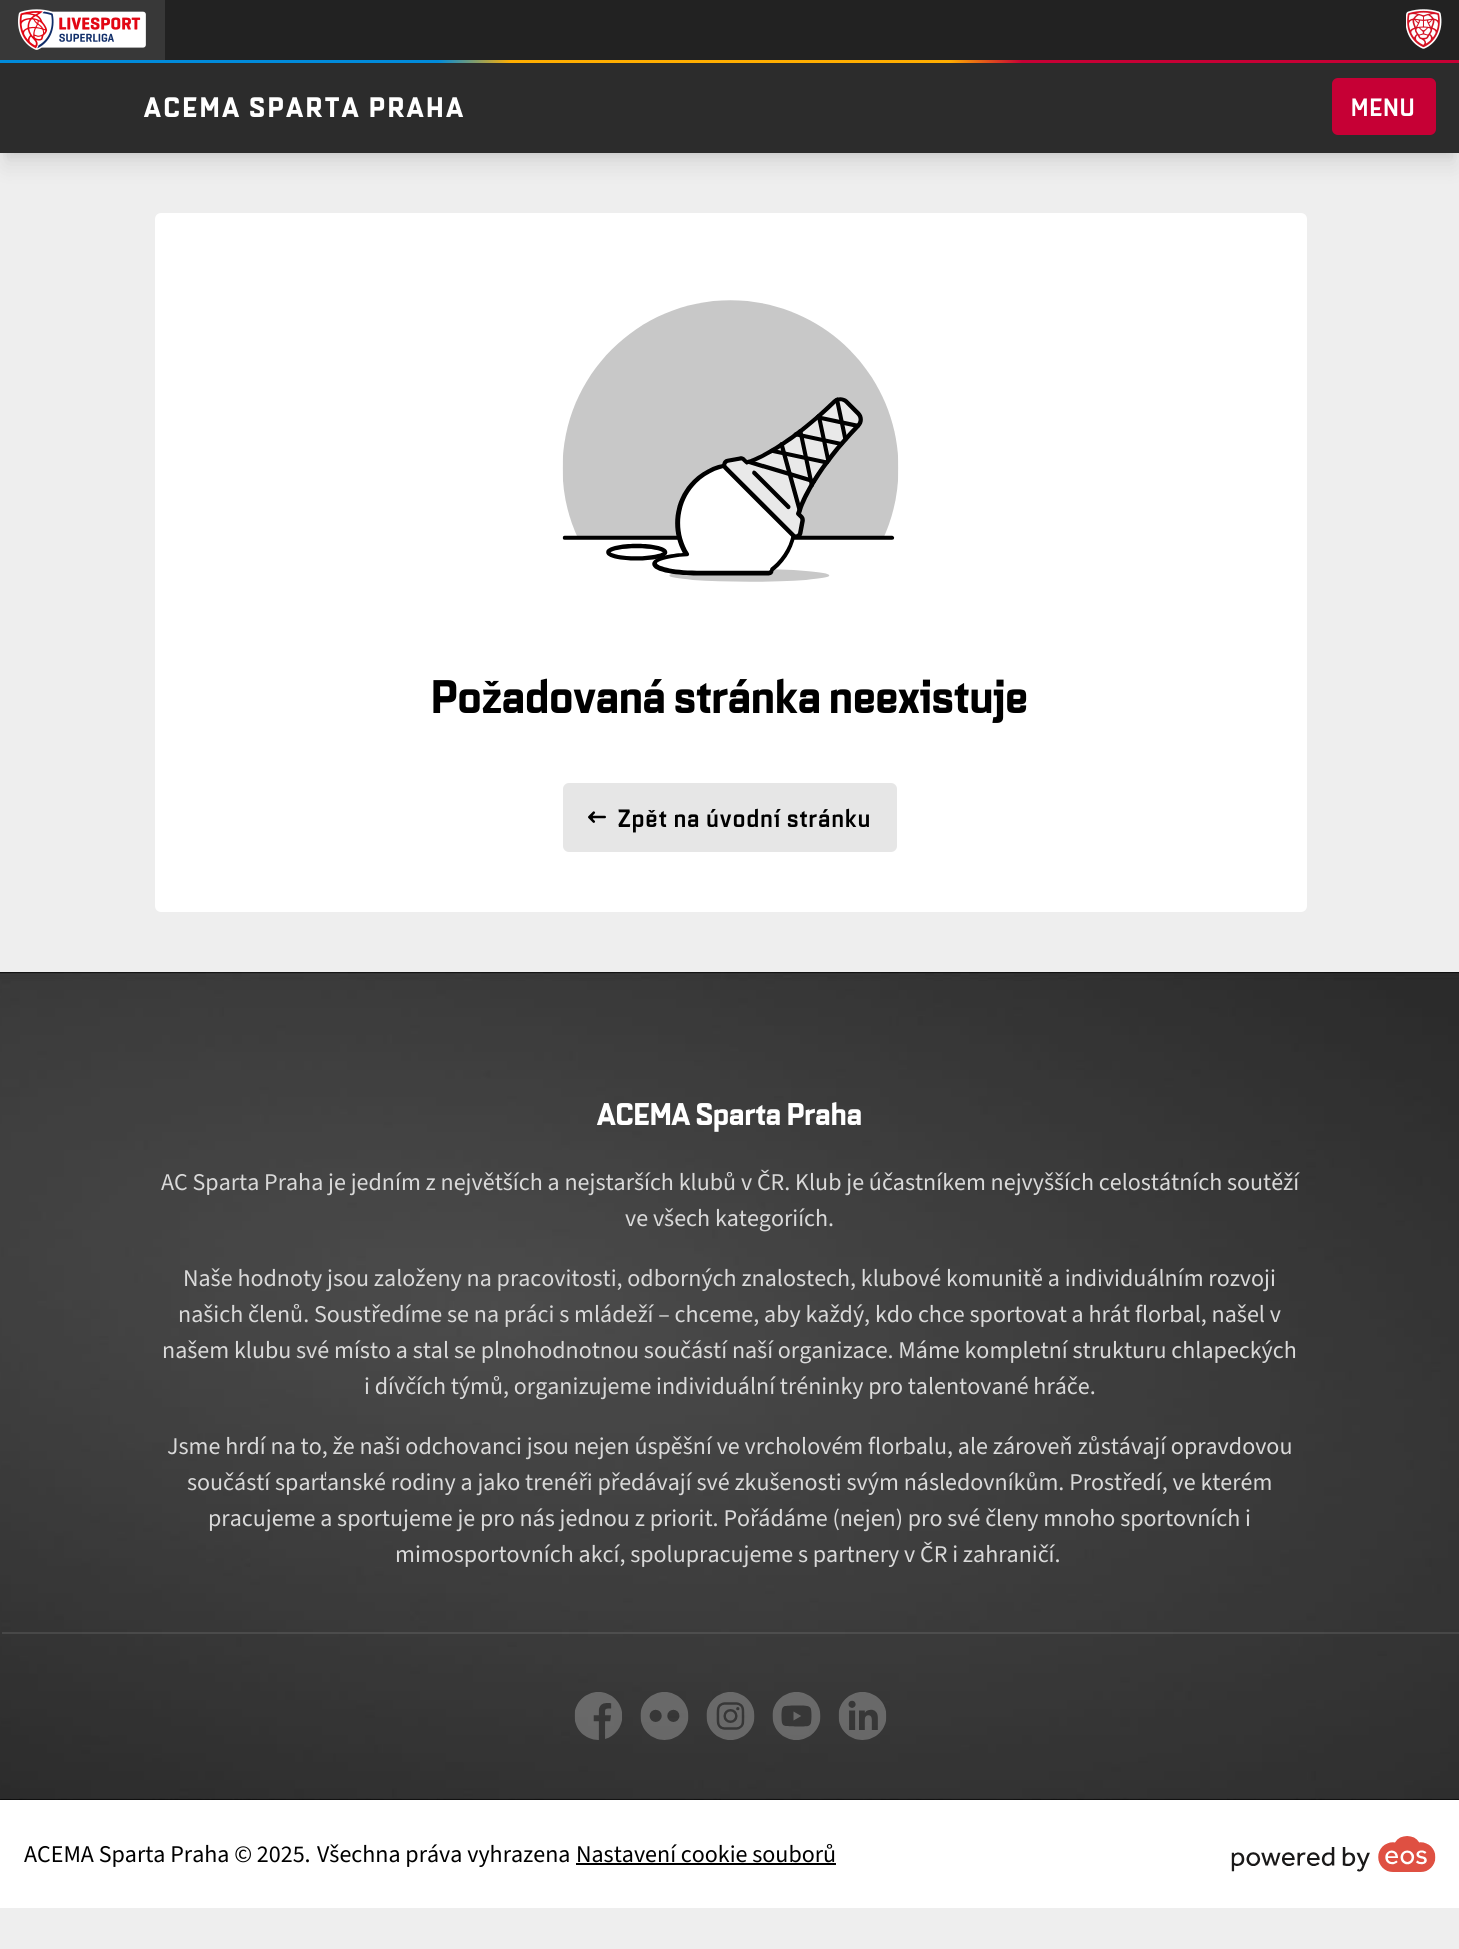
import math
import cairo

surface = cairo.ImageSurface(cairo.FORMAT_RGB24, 1459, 1949)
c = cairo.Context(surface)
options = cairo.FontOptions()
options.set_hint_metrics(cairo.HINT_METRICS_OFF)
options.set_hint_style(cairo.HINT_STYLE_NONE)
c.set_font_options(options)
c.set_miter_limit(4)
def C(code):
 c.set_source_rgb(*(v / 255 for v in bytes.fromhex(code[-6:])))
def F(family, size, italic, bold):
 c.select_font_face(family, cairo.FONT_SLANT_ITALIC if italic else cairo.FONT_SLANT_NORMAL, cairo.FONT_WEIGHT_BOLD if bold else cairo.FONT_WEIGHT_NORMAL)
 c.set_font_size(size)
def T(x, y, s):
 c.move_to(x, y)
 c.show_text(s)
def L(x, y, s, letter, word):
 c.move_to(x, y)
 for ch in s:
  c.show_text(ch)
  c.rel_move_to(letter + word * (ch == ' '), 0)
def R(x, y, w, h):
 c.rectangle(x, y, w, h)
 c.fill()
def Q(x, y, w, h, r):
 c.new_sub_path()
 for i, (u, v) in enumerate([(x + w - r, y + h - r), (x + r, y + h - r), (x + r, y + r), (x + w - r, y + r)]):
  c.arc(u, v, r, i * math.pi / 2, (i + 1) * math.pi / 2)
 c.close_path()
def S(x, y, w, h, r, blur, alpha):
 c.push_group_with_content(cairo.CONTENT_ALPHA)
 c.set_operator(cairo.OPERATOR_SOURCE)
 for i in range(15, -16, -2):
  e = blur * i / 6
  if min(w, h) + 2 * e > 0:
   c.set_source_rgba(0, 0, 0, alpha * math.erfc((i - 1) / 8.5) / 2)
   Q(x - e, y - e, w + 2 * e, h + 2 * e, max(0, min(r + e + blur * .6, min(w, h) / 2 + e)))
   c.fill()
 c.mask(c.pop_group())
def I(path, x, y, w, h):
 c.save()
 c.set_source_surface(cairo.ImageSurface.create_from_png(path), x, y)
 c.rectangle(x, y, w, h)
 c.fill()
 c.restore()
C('eeeeee')
c.paint()
C('222222')
R(165,0,1294,60)
C('000000')
S(6,72,1448,81,0,4.5,.1)
S(5,80,1450,84,0,11,.1)
C('383838')
R(0,0,165,60)
I('1.png',18,9,128,41)
I('2.png',1406,9,36,40)
C('2c2c2c')
R(0,63,1459,90)
gradient = cairo.LinearGradient(0,62,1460,61)
gradient.add_color_stop_rgba(0,0,0.545,0.859,1)
gradient.add_color_stop_rgba(.3,0,0.545,0.859,1)
gradient.add_color_stop_rgba(.35,1,0.682,0,1)
gradient.add_color_stop_rgba(.65,1,0.682,0,1)
gradient.add_color_stop_rgba(.7,0.78,0,0.208,1)
gradient.add_color_stop_rgba(1,0.78,0,0.208,1)
c.set_source(gradient)
R(0,60,1459,3)
F('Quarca',27,0,1)
C('ffffff')
L(144,117,'ACEMA SPARTA PRAHA',2.75,0)
C('c60035')
Q(1332,78,104,57,6)
c.fill()
F('Quarca SemiBold',24,0,0)
C('ffffff')
L(1351,116,'MENU',1.2,0)
Q(155,213,1152,699,6)
c.fill()
I('3.png',562,300,337,282)
F('Quarca',45,0,1)
C('000000')
T(431,713,'Požadovaná stránka neexistuje')
C('e6e6e6')
Q(563,783,334,69,6)
c.fill()
I('4.png',588,811,18,12)
F('Quarca SemiBold',24,0,0)
C('000000')
L(618,827,'Zpět na úvodní stránku',1.2,0)
I('5.png',0,972,1459,828)
F('Quarca',30,0,1)
C('ffffff')
T(597,1125,'ACEMA Sparta Praha')
F('Source Sans 3',24,0,0)
C('d9d9d9')
T(161,1190,'AC Sparta Praha je jedním z největších a nejstarších klubů v ČR. Klub je účastníkem nejvyšších celostátních soutěží')
T(625,1226,'ve všech kategoriích.')
T(183,1286,'Naše hodnoty jsou založeny na pracovitosti, odborných znalostech, klubové komunitě a individuálním rozvoji')
T(178,1322,'našich členů. Soustředíme se na práci s mládeží – chceme, aby každý, kdo chce sportovat a hrát florbal, našel v')
T(162,1358,'našem klubu své místo a stal se plnohodnotnou součástí naší organizace. Máme kompletní strukturu chlapeckých')
T(364,1394,'i dívčích týmů, organizujeme individuální tréninky pro talentované hráče.')
T(167,1454,'Jsme hrdí na to, že naši odchovanci jsou nejen úspěšní ve vrcholovém florbalu, ale zároveň zůstávají opravdovou')
T(187,1490,'součástí sparťanské rodiny a jako trenéři předávají své zkušenosti svým následovníkům. Prostředí, ve kterém')
T(208,1526,'pracujeme a sportujeme je pro nás jednou z priorit. Pořádáme (nejen) pro své členy mnoho sportovních i')
T(395,1562,'mimosportovních akcí, spolupracujeme s partnery v ČR i zahraničí.')
c.set_source_rgba(1,1,1,0.1)
R(2,1632,1457,2)
I('6.png',574,1692,48,48)
I('7.png',640,1692,49,48)
I('8.png',706,1692,49,48)
I('9.png',772,1692,49,48)
I('10.png',838,1692,49,48)
C('ffffff')
R(0,1800,1459,108)
C('000000')
T(24,1862,'ACEMA Sparta Praha © 2025.')
T(317,1862,'Všechna práva vyhrazena')
T(576,1862,'Nastavení cookie souborů')
R(576,1863,260,2)
I('11.png',1231,1836,205,36)
surface.write_to_png('o.png')
